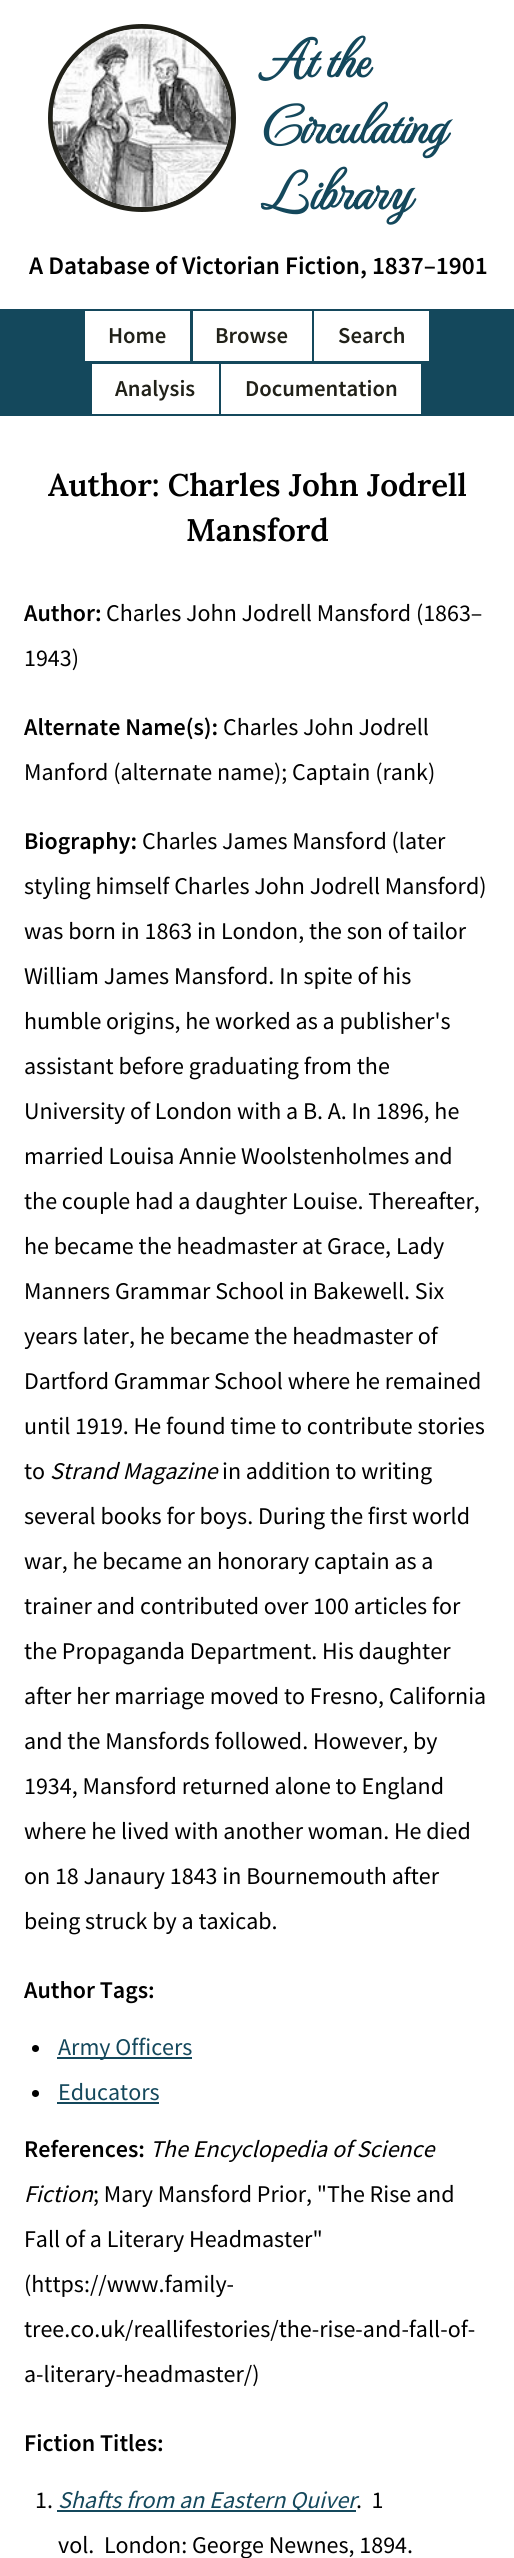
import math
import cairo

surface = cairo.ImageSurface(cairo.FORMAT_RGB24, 514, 2558)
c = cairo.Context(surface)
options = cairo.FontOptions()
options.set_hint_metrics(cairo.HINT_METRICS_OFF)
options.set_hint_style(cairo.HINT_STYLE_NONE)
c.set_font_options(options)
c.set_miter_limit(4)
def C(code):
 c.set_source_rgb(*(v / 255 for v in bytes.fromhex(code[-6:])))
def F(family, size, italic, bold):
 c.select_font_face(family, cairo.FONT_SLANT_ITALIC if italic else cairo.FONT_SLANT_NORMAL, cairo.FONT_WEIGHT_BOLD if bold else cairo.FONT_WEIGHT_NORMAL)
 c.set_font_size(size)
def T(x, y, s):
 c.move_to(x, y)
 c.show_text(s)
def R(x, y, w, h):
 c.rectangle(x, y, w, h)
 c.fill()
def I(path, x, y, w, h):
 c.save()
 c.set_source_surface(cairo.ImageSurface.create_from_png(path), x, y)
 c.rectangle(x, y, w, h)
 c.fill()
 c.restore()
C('ffffff')
c.paint()
c.arc(142,118,91.5,0,2 * math.pi)
C('212119')
c.set_line_width(5)
c.stroke()
I('1.png',52,28,179,179)
F('MonteCarlo',55,0,1)
C('14485c')
T(260,77,'At the')
T(260,143,'Circulating')
T(260,209,'Library')
F('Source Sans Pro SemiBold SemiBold',25.25,0,0)
C('000000')
T(29,274,'A Database of Victorian Fiction, 1837–1901')
C('14485c')
R(0,309,514,107)
C('ffffff')
R(85,311,105,50)
F('Source Sans Pro SemiBold SemiBold',22.75,0,0)
C('212119')
T(108,343,'Home')
C('ffffff')
R(193,311,119,50)
C('212119')
T(215,343,'Browse')
C('ffffff')
R(314,311,115,50)
C('212119')
T(338,343,'Search')
C('ffffff')
R(92,364,127,50)
C('212119')
T(115,396,'Analysis')
C('ffffff')
R(221,364,200,50)
C('212119')
T(245,396,'Documentation')
F('Lora SemiBold',31.25,0,0)
C('000000')
T(48,496,'Author: Charles John Jodrell')
T(186,541,'Mansford')
F('Source Sans Pro SemiBold SemiBold',24,0,0)
T(24,621,'Author:')
F('Source Sans Pro',24,0,0)
T(106,621,'Charles John Jodrell Mansford (1863–')
T(24,666,'1943)')
F('Source Sans Pro SemiBold SemiBold',24,0,0)
T(24,735,'Alternate Name(s):')
F('Source Sans Pro',24,0,0)
T(223,735,'Charles John Jodrell')
T(24,780,'Manford (alternate name); Captain (rank)')
F('Source Sans Pro SemiBold SemiBold',24,0,0)
T(24,849,'Biography:')
F('Source Sans Pro',24,0,0)
T(142,849,'Charles James Mansford (later')
T(24,894,'styling himself Charles John Jodrell Mansford)')
T(24,939,'was born in 1863 in London, the son of tailor')
T(24,984,'William James Mansford. In spite of his')
T(24,1029,'humble origins, he worked as a publisher\'s')
T(24,1074,'assistant before graduating from the')
T(24,1119,'University of London with a B. A. In 1896, he')
T(24,1164,'married Louisa Annie Woolstenholmes and')
T(24,1209,'the couple had a daughter Louise. Thereafter,')
T(24,1254,'he became the headmaster at Grace, Lady')
T(24,1299,'Manners Grammar School in Bakewell. Six')
T(24,1344,'years later, he became the headmaster of')
T(24,1389,'Dartford Grammar School where he remained')
T(24,1434,'until 1919. He found time to contribute stories')
T(24,1479,'to')
F('Source Sans Pro',24,1,0)
T(50,1479,'Strand Magazine')
F('Source Sans Pro',24,0,0)
T(222,1479,'in addition to writing')
T(24,1524,'several books for boys. During the first world')
T(24,1569,'war, he became an honorary captain as a')
T(24,1614,'trainer and contributed over 100 articles for')
T(24,1659,'the Propaganda Department. His daughter')
T(24,1704,'after her marriage moved to Fresno, California')
T(24,1749,'and the Mansfords followed. However, by')
T(24,1794,'1934, Mansford returned alone to England')
T(24,1839,'where he lived with another woman. He died')
T(24,1884,'on 18 Janaury 1843 in Bournemouth after')
T(24,1929,'being struck by a taxicab.')
F('Source Sans Pro SemiBold SemiBold',24,0,0)
T(24,1998,'Author Tags:')
c.new_path()
c.arc(35.5,2048.5,3.5,0,2 * math.pi)
c.fill()
C('14485c')
R(57,2057,135,2)
F('Source Sans Pro',24,0,0)
T(58,2055,'Army Officers')
C('000000')
c.new_path()
c.arc(35.5,2093.5,3.5,0,2 * math.pi)
c.fill()
C('14485c')
T(58,2100,'Educators')
R(57,2102,102,2)
F('Source Sans Pro SemiBold SemiBold',24,0,0)
C('000000')
T(24,2157,'References:')
F('Source Sans Pro',24,1,0)
T(150,2157,'The Encyclopedia of Science')
T(24,2202,'Fiction')
F('Source Sans Pro',24,0,0)
T(93,2202,'; Mary Mansford Prior, "The Rise and')
T(24,2247,'Fall of a Literary Headmaster"')
T(24,2292,'(https://www.family-')
T(24,2337,'tree.co.uk/reallifestories/the-rise-and-fall-of-')
T(24,2382,'a-literary-headmaster/)')
F('Source Sans Pro SemiBold SemiBold',24,0,0)
T(24,2451,'Fiction Titles:')
F('Source Sans Pro',24,0,0)
T(35,2508,'1.')
C('14485c')
R(57,2510,299,2)
F('Source Sans Pro',24,1,0)
T(58,2508,'Shafts from an Eastern Quiver')
F('Source Sans Pro',24,0,0)
C('000000')
T(356,2508,'.  1')
T(58,2553,'vol.  London: George Newnes, 1894.')
surface.write_to_png('o.png')
